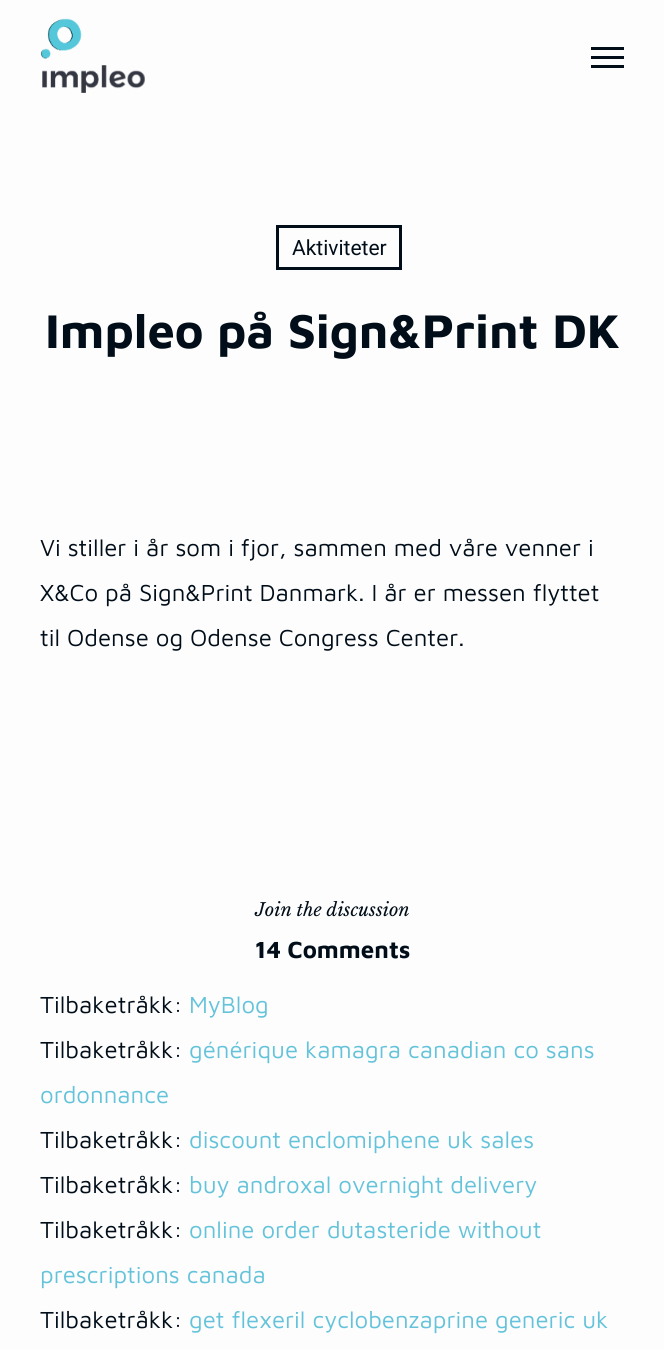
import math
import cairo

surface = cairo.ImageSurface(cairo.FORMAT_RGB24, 664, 1350)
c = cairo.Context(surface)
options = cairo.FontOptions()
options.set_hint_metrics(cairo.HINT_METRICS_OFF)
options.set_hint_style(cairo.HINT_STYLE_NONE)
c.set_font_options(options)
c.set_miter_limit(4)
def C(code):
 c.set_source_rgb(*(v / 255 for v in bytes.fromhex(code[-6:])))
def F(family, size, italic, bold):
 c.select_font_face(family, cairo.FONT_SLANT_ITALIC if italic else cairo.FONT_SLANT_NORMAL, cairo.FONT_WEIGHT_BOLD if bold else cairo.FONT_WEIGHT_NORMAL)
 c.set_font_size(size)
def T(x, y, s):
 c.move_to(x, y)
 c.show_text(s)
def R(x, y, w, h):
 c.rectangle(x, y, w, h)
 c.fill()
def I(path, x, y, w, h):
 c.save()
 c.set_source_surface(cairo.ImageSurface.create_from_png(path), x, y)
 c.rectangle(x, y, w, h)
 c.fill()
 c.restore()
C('fdfdfd')
c.paint()
I('1.png',40,18,105,75)
C('010e19')
R(591,47,33,3)
R(591,65,33,3)
R(591,56,33,3)
c.rectangle(277.5,226.5,123,42)
c.set_line_width(3)
c.stroke()
F('Roboto',21,0,0)
T(292,255,'Aktiviteter')
F('Maven Pro',48.75,0,1)
T(45,348,'Impleo på Sign&Print DK')
F('Maven Pro',24,0,0)
T(40,556,'Vi stiller i år som i fjor, sammen med våre venner i')
T(40,601,'X&Co på Sign&Print Danmark. I år er messen flyttet')
T(40,646,'til Odense og Odense Congress Center.')
F('Libre Baskerville',18,1,0)
T(255,916,'Join the discussion')
F('Maven Pro',24,0,1)
T(255,958,'14 Comments')
F('Maven Pro',24,0,0)
T(40,1013,'Tilbaketråkk:')
C('64c3da')
T(189,1013,'MyBlog')
C('010e19')
T(40,1058,'Tilbaketråkk:')
C('64c3da')
T(189,1058,'générique kamagra canadian co sans')
T(40,1103,'ordonnance')
C('010e19')
T(40,1148,'Tilbaketråkk:')
C('64c3da')
T(189,1148,'discount enclomiphene uk sales')
C('010e19')
T(40,1193,'Tilbaketråkk:')
C('64c3da')
T(189,1193,'buy androxal overnight delivery')
C('010e19')
T(40,1238,'Tilbaketråkk:')
C('64c3da')
T(189,1238,'online order dutasteride without')
T(40,1283,'prescriptions canada')
C('010e19')
T(40,1328,'Tilbaketråkk:')
C('64c3da')
T(189,1328,'get flexeril cyclobenzaprine generic uk')
surface.write_to_png('o.png')
